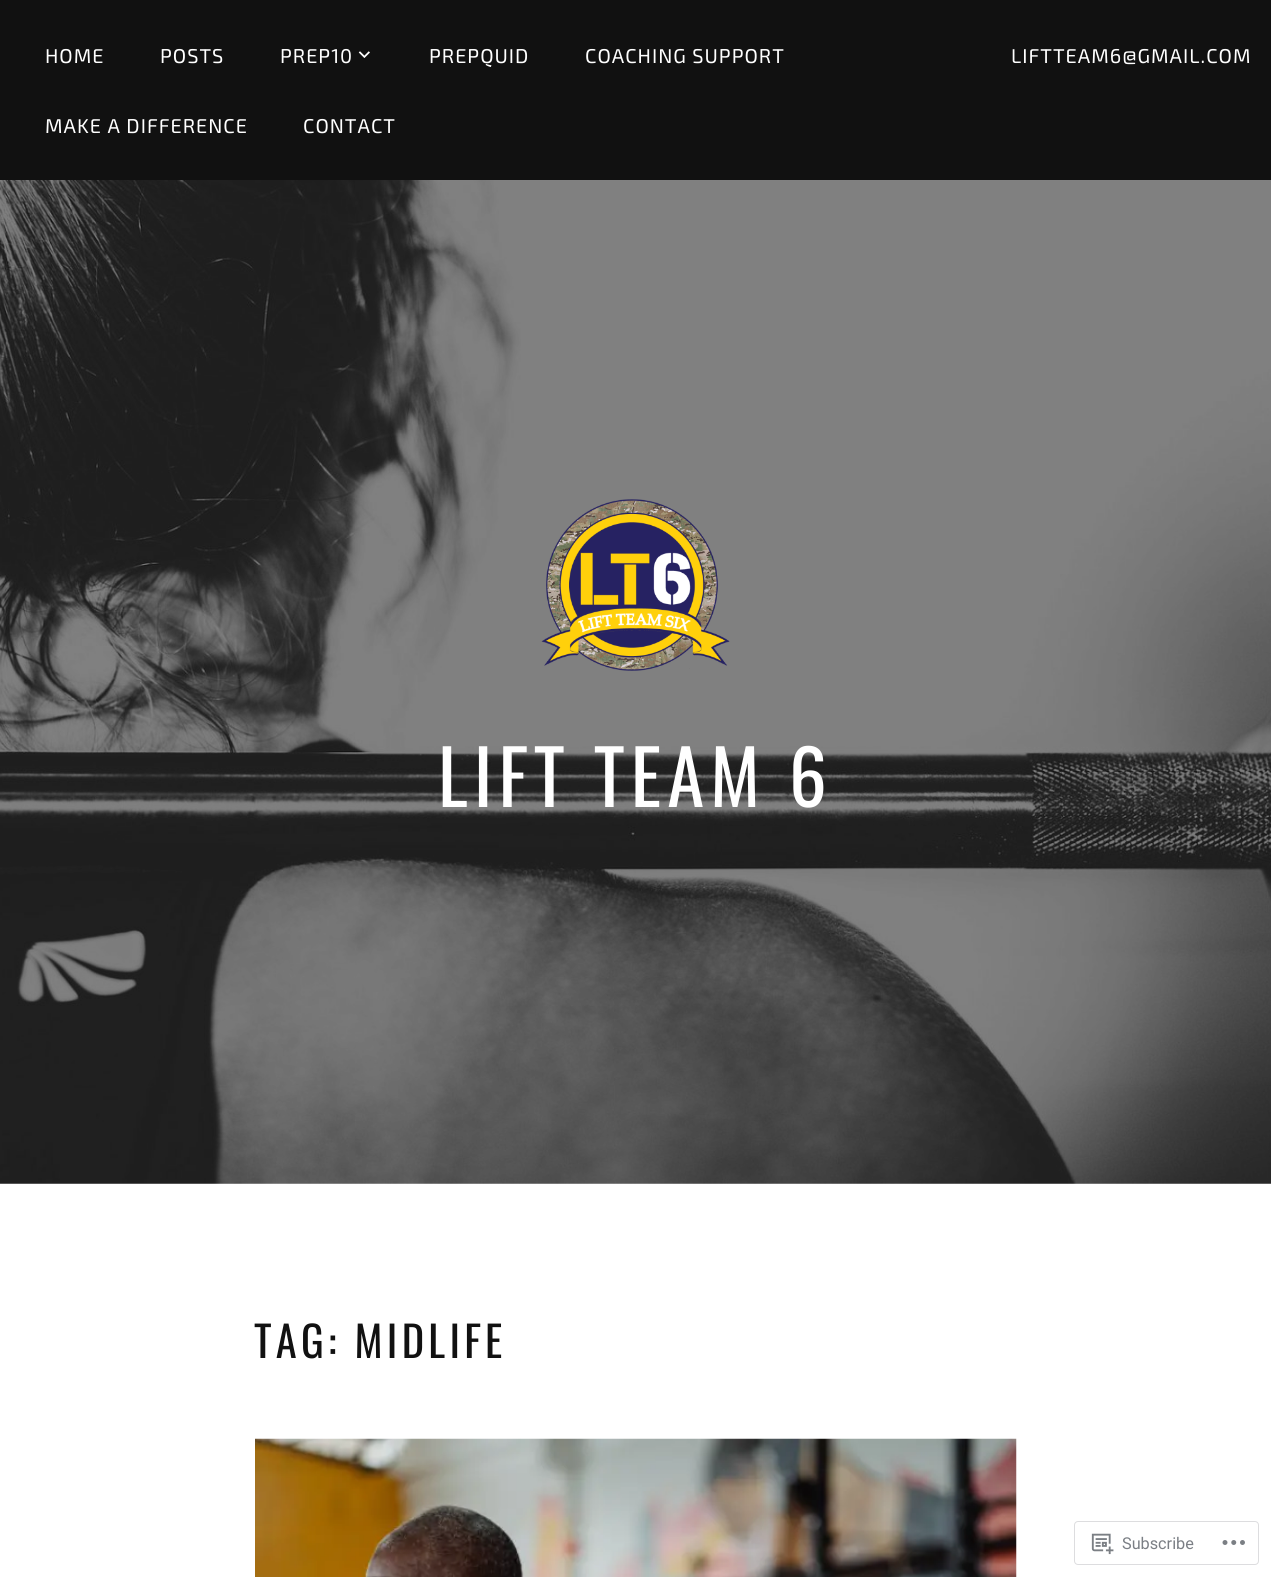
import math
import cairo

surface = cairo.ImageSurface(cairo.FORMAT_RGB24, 1271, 1577)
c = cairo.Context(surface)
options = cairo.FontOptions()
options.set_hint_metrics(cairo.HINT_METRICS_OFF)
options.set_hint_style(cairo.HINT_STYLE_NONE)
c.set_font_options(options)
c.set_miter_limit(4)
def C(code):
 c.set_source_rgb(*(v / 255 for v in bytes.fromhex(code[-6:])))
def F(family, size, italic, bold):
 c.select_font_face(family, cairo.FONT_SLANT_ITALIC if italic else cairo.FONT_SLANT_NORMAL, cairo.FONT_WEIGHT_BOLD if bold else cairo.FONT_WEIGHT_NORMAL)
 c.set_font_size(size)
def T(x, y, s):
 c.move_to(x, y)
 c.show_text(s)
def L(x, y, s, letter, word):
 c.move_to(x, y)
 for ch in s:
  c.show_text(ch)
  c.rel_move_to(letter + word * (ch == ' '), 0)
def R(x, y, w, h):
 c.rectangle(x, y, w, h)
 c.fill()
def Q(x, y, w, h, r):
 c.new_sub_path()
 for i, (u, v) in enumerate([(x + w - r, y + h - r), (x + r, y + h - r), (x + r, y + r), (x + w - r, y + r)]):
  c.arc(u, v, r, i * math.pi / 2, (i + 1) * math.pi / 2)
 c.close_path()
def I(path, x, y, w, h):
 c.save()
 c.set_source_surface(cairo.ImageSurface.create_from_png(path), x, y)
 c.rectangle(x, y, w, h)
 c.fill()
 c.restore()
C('ffffff')
c.paint()
C('111111')
R(0,0,1271,180)
F('Exo 2',20,0,0)
C('ffffff')
L(45,63,'HOME',1,0)
L(160,63,'POSTS',1,0)
L(280,63,'PREP10',1,0)
I('1.png',358,51,12,7)
L(429,63,'PREPQUID',1,0)
L(585,63,'COACHING SUPPORT',1,0)
L(45,133,'MAKE A DIFFERENCE',1,0)
L(303,133,'CONTACT',1,0)
L(1011,63,'LIFTTEAM6@GMAIL.COM',1,0)
I('2.png',0,180,1271,1004)
I('3.png',541,499,189,172)
F('Oswald',75,0,0)
L(438,807,'LIFT TEAM 6',6,0)
F('Oswald',42.5,0,0)
C('111111')
L(254,1358,'TAG: MIDLIFE',4.25,0)
I('4.png',255,1438,762,139)
Q(1074.5,1521.5,184,43,3.5)
C('dddddf')
c.set_line_width(1)
c.stroke()
I('5.png',1091,1533,23,22)
F('Roboto',16.25,0,0)
C('7b7f85')
T(1122,1549,'Subscribe')
I('6.png',1222,1540,23,5)
surface.write_to_png('o.png')
